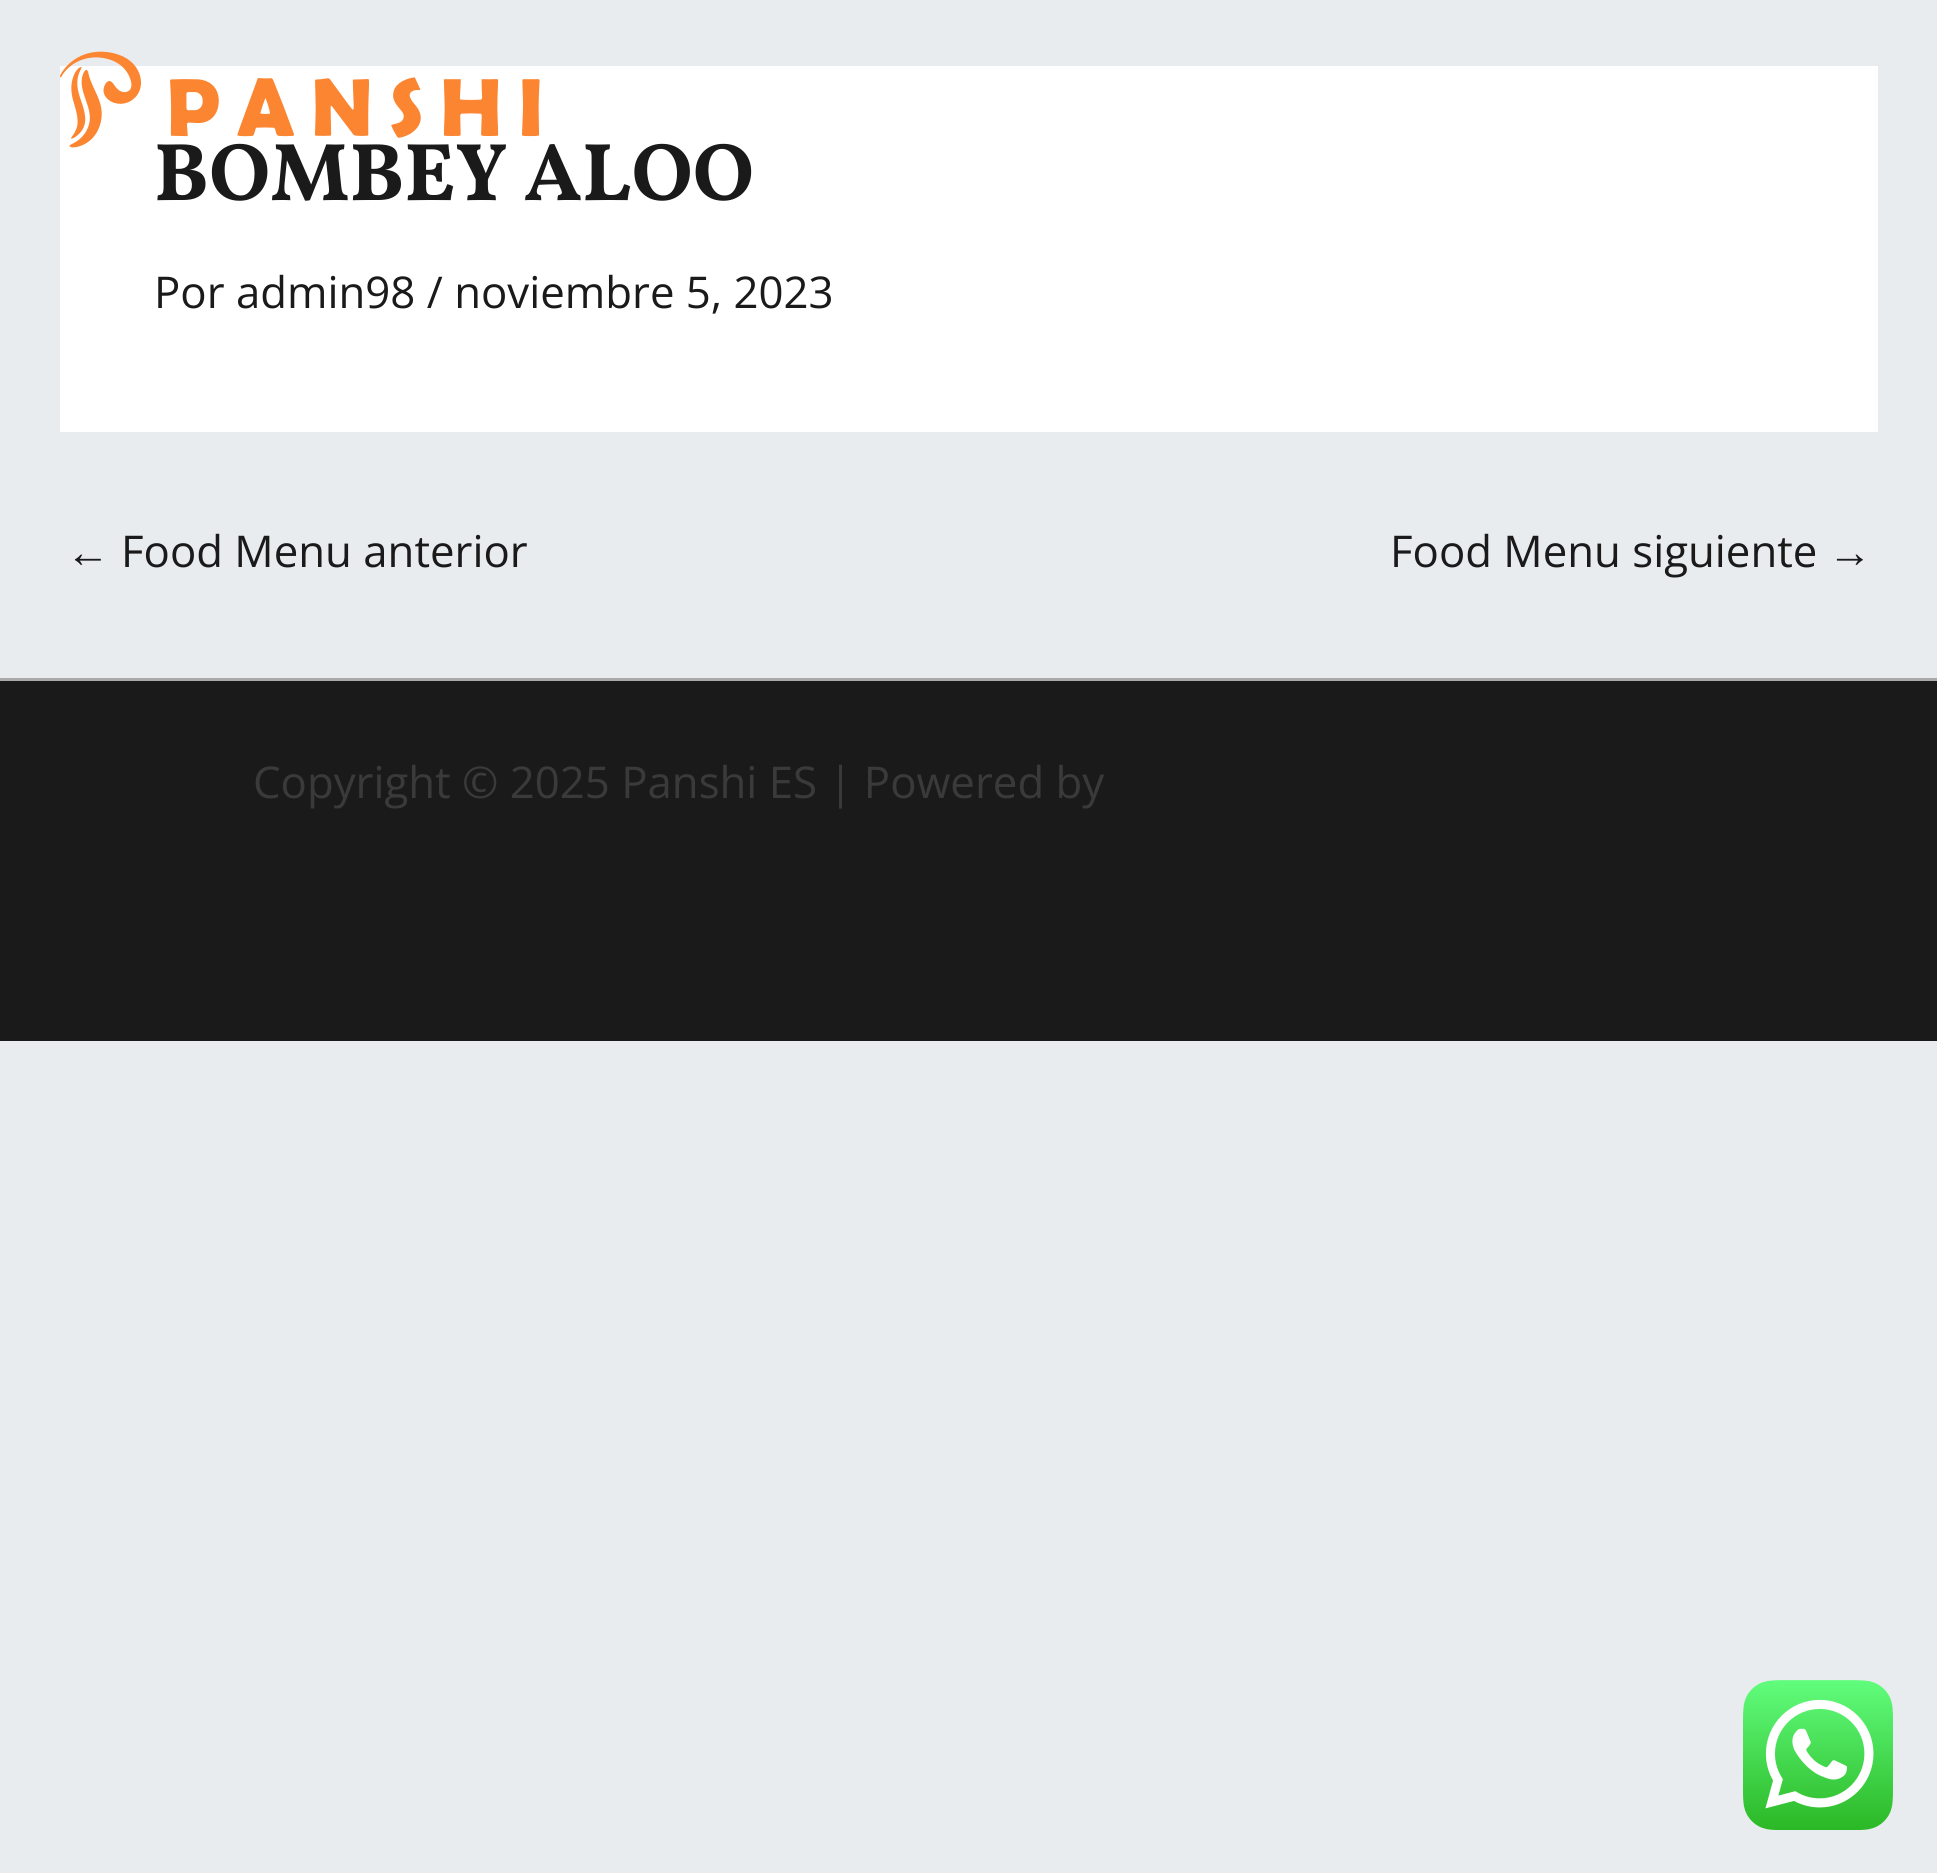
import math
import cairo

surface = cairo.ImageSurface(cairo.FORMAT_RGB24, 1937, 1873)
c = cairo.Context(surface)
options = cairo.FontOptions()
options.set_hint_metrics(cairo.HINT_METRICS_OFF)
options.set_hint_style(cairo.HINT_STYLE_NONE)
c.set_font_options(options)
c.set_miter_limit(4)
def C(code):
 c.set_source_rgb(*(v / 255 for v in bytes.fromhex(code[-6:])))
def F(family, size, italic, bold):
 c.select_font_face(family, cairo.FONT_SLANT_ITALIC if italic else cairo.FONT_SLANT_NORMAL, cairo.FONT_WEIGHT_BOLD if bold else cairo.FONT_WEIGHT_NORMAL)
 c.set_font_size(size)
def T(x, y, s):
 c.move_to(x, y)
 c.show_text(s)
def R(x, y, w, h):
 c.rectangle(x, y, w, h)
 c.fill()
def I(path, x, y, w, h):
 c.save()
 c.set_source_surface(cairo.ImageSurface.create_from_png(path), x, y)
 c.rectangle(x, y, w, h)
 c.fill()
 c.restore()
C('e9ecef')
c.paint()
C('ffffff')
R(60,66,1818,366)
F('Vollkorn',82,0,1)
C('1a1a1a')
T(154,200,'BOMBEY ALOO')
I('1.png',60,51,480,97)
F('Open Sans',43.75,0,0)
T(154,308,'Por admin98 / noviembre 5, 2023')
F('Liberation Sans',43.75,0,0)
T(66,567,'←')
F('Open Sans',43.75,0,0)
T(121,567,'Food Menu anterior')
T(1390,567,'Food Menu siguiente')
F('Liberation Sans',43.75,0,0)
T(1828,567,'→')
R(0,681,1937,360)
C('aaaaaa')
R(0,678,1937,3)
F('Open Sans',43.75,0,0)
C('3a3a3a')
T(253,798,'Copyright © 2025 Panshi ES | Powered by')
I('2.png',1743,1680,150,150)
surface.write_to_png('o.png')
